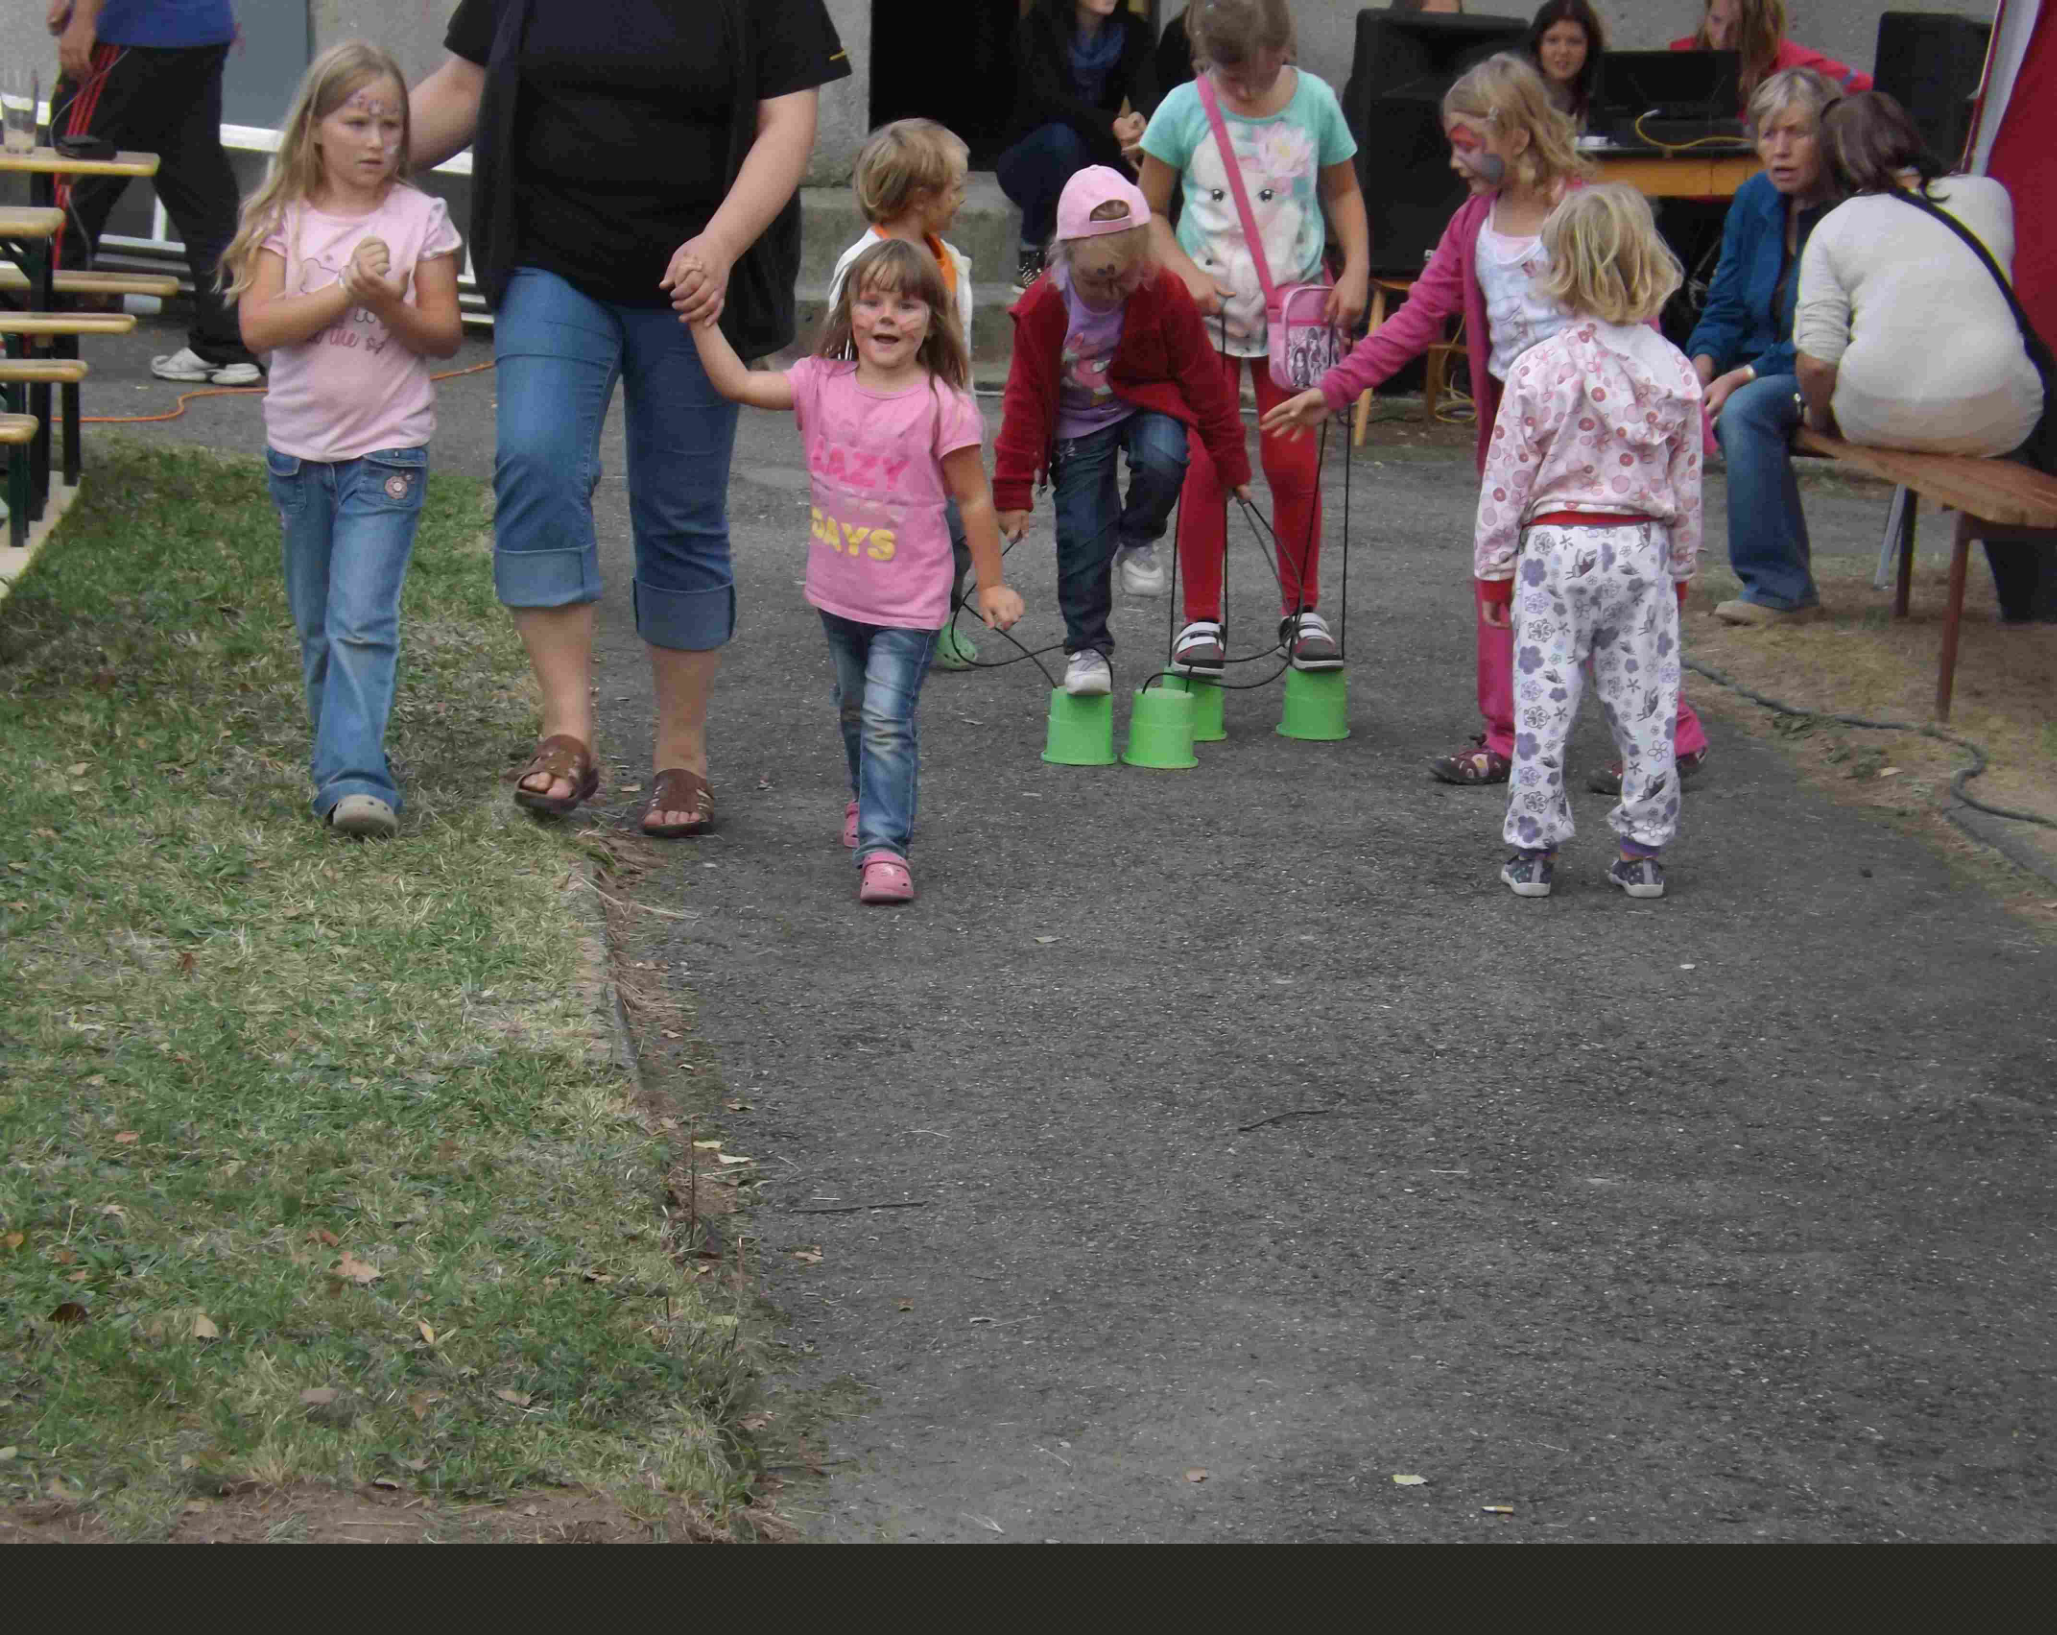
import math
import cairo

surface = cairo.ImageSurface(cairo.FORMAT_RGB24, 2057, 1635)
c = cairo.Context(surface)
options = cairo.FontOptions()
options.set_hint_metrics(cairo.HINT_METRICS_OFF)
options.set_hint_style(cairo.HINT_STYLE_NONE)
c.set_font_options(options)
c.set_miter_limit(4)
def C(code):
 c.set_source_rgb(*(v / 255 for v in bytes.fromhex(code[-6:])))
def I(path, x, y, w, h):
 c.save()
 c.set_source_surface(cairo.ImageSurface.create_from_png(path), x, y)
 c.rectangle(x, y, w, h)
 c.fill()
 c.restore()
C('25251f')
c.paint()
I('1.png',0,1543,2057,92)
I('2.png',0,0,2057,1544)
surface.write_to_png('o.png')
